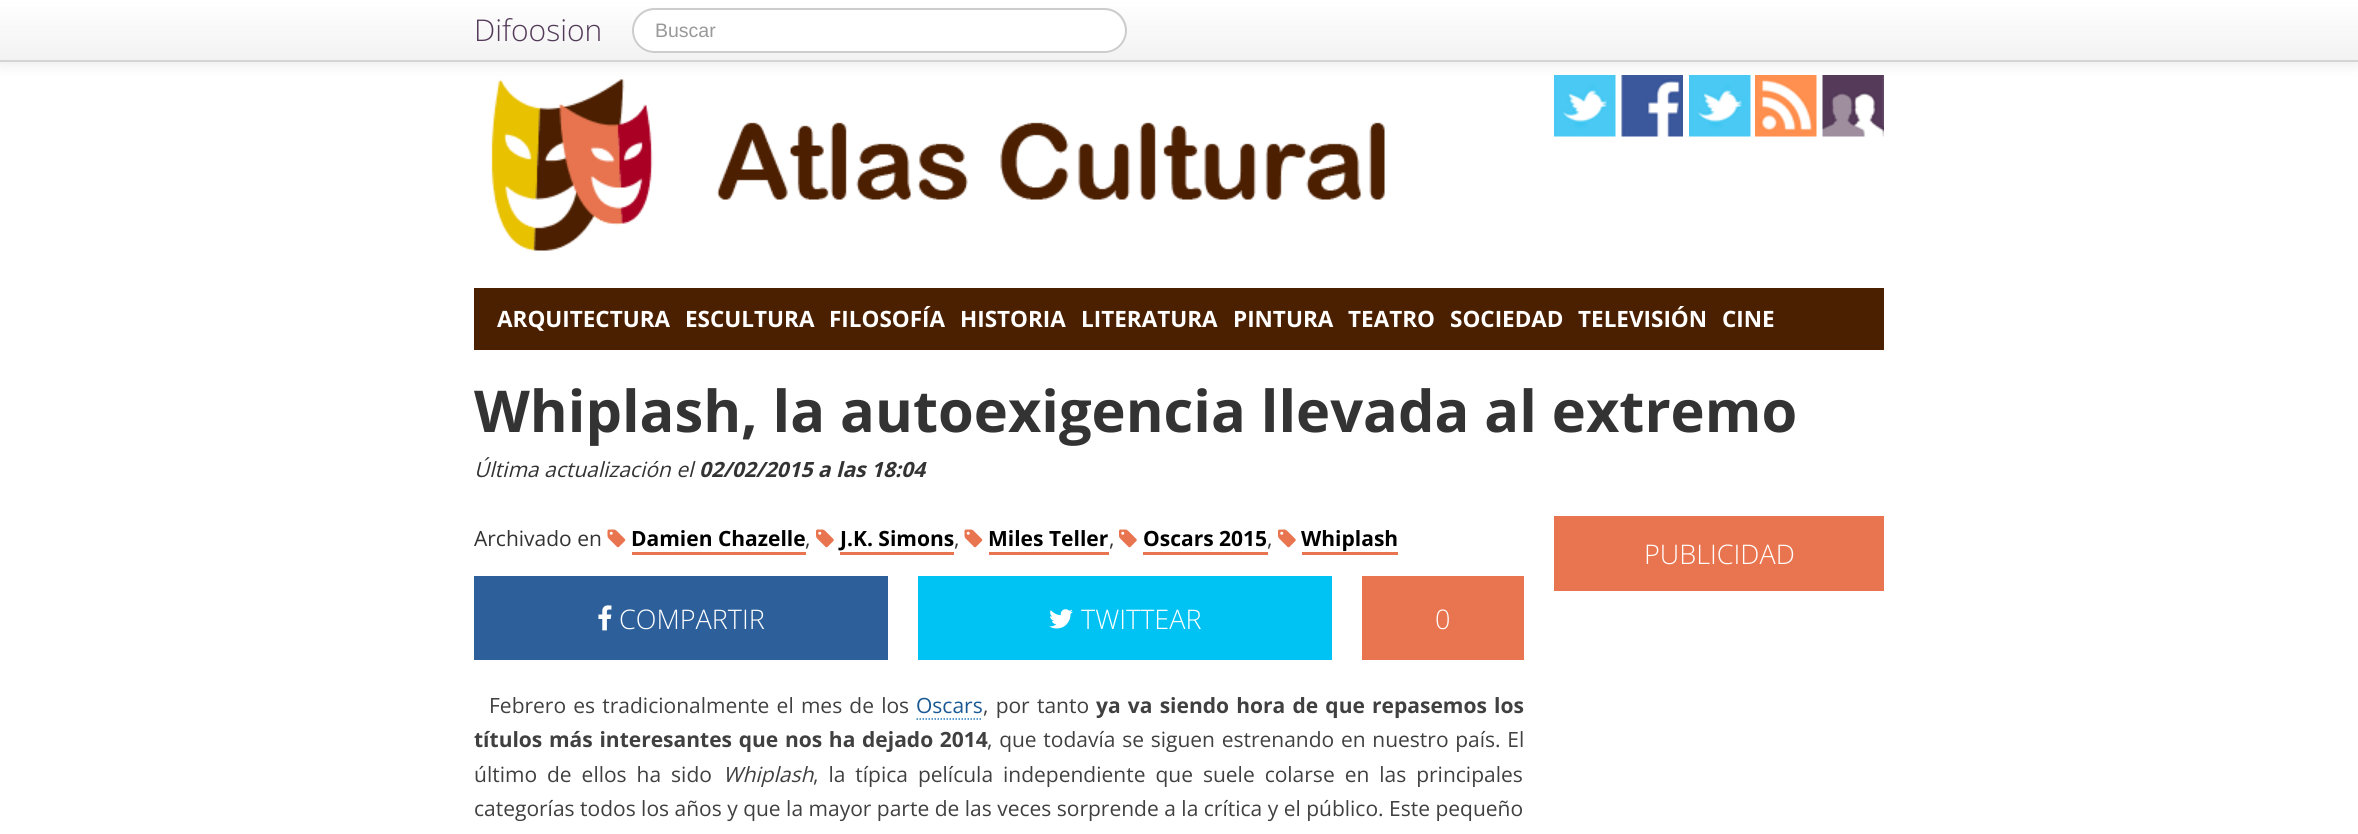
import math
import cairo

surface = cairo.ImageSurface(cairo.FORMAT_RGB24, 2358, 834)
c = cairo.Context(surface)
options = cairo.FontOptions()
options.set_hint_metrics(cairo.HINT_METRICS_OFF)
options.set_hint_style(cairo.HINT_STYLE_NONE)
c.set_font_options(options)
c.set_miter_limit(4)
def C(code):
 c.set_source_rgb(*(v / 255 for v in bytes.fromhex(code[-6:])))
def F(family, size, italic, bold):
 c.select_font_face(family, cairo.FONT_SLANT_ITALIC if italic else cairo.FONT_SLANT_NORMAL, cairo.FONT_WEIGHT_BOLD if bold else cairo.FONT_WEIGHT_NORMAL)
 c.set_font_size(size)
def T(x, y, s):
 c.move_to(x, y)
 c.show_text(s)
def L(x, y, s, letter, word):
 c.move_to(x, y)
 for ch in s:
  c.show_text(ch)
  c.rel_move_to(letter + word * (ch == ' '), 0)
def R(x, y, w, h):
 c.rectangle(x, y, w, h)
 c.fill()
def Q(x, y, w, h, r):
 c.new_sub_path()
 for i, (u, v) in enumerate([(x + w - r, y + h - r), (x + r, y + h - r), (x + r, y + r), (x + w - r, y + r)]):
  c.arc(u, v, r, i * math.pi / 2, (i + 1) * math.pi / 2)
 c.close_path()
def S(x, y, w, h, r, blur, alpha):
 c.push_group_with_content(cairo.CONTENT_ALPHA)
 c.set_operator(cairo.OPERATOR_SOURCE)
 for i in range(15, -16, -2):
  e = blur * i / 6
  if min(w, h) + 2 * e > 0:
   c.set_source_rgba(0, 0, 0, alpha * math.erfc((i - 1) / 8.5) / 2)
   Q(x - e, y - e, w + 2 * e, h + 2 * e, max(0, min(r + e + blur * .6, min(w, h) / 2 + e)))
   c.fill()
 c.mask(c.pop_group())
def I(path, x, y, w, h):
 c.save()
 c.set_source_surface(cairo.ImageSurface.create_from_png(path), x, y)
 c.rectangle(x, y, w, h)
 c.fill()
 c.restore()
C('ffffff')
c.paint()
I('1.png',491,79,894,172)
I('2.png',1554,75,62,62)
I('3.png',1621,75,62,62)
I('2.png',1689,75,62,62)
I('4.png',1755,75,62,62)
I('5.png',1822,75,62,62)
C('000000')
S(0,2,2358,61,0,7.5,.1)
gradient = cairo.LinearGradient(1179,0,1179,60)
gradient.add_color_stop_rgba(0,1,1,1,1)
gradient.add_color_stop_rgba(1,0.949,0.949,0.949,1)
c.set_source(gradient)
R(0,0,2358,60)
C('d4d4d4')
R(0,60,2358,2)
F('Open Sans Light',30,0,0)
C('543a59')
T(474,41,'Difoosion')
C('ffffff')
Q(632,8,495,45,22.5)
c.fill()
C('ececec')
c.new_path()
c.move_to(654,10)
c.line_to(1104,10)
c.curve_to(1116,10,1124,19,1125,31)
c.curve_to(1126,19,1116,9,1104,9)
c.line_to(654,9)
c.curve_to(642,9,632,19,633,31)
c.curve_to(634,19,642,10,654,10)
c.close_path()
c.fill()
Q(633,9,493,43,21.5)
C('cccccc')
c.stroke()
F('Liberation Sans',19.5,0,0)
C('999999')
T(655,37,'Buscar')
C('4b2000')
R(474,288,1410,62)
F('Open Sans',22.5,0,1)
C('ffffff')
T(497,327,'ARQUITECTURA')
T(685,327,'ESCULTURA')
T(829,327,'FILOSOFÍA')
T(960,327,'HISTORIA')
T(1081,327,'LITERATURA')
T(1233,327,'PINTURA')
T(1348,327,'TEATRO')
T(1450,327,'SOCIEDAD')
T(1578,327,'TELEVISIÓN')
T(1722,327,'CINE')
F('Open Sans',57.75,0,1)
C('333333')
T(474,432,'Whiplash, la autoexigencia llevada al extremo')
F('Open Sans',21,1,0)
T(474,477,'Última actualización el')
F('Open Sans',21,1,1)
T(699,477,'02/02/2015 a las 18:04')
F('Open Sans',21,0,0)
T(474,546,'Archivado en')
I('6.png',607,529,19,19)
F('Open Sans',21,0,1)
C('000000')
T(631,546,'Damien Chazelle')
C('e97550')
R(632,552,174,3)
F('Open Sans',21,0,0)
C('333333')
T(805,546,',')
I('7.png',816,529,18,19)
F('Open Sans',21,0,1)
C('000000')
T(840,546,'J.K. Simons')
C('e97550')
R(840,552,114,3)
F('Open Sans',21,0,0)
C('333333')
T(954,546,',')
I('6.png',964,529,19,19)
F('Open Sans',21,0,1)
C('000000')
T(988,546,'Miles Teller')
C('e97550')
R(989,552,120,3)
F('Open Sans',21,0,0)
C('333333')
T(1109,546,',')
I('7.png',1119,529,18,19)
F('Open Sans',21,0,1)
C('000000')
T(1143,546,'Oscars 2015')
C('e97550')
R(1143,552,125,3)
F('Open Sans',21,0,0)
C('333333')
T(1267,546,',')
I('7.png',1278,529,18,19)
F('Open Sans',21,0,1)
C('000000')
T(1301,546,'Whiplash')
C('e97550')
R(1302,552,96,3)
C('2d609b')
R(474,576,414,84)
I('8.png',598,605,14,26)
F('Open Sans Light',27,0,0)
C('ffffff')
T(619,629,'COMPARTIR')
C('00c3f3')
R(918,576,414,84)
I('9.png',1049,609,24,20)
C('ffffff')
T(1081,629,'TWITTEAR')
C('e97550')
R(1362,576,162,84)
C('ffffff')
T(1435,629,'0')
F('Open Sans',21,0,0)
C('404040')
L(489,713,'Febrero es tradicionalmente el mes de los',0,1.75)
C('1a5893')
T(916,713,'Oscars')
c.new_path()
c.move_to(916.5,719)
c.line_to(982.5,719)
C('287dbd')
c.set_line_width(1.5)
c.set_dash([1.5,1.5])
c.stroke()
C('404040')
L(983,713,', por tanto',0,1.75)
F('Open Sans',21,0,1)
L(1096,713,'ya va siendo hora de que repasemos los',0,1.75)
L(474,747,'títulos más interesantes que nos ha dejado 2014',0,1.25)
F('Open Sans',21,0,0)
L(987,747,', que todavía se siguen estrenando en nuestro país. El',0,1.25)
L(474,782,'último de ellos ha sido',0,4.5)
F('Open Sans',21,1,0)
T(723,782,'Whiplash')
F('Open Sans',21,0,0)
L(813,782,', la típica película independiente que suele colarse en las principales',0,4.5)
T(474,816,'categorías todos los años y que la mayor parte de las veces sorprende a la crítica y el público. Este pequeño')
C('e97550')
R(1554,516,330,75)
F('Open Sans Light',27,0,0)
C('ffffff')
T(1644,564,'PUBLICIDAD')
surface.write_to_png('o.png')
